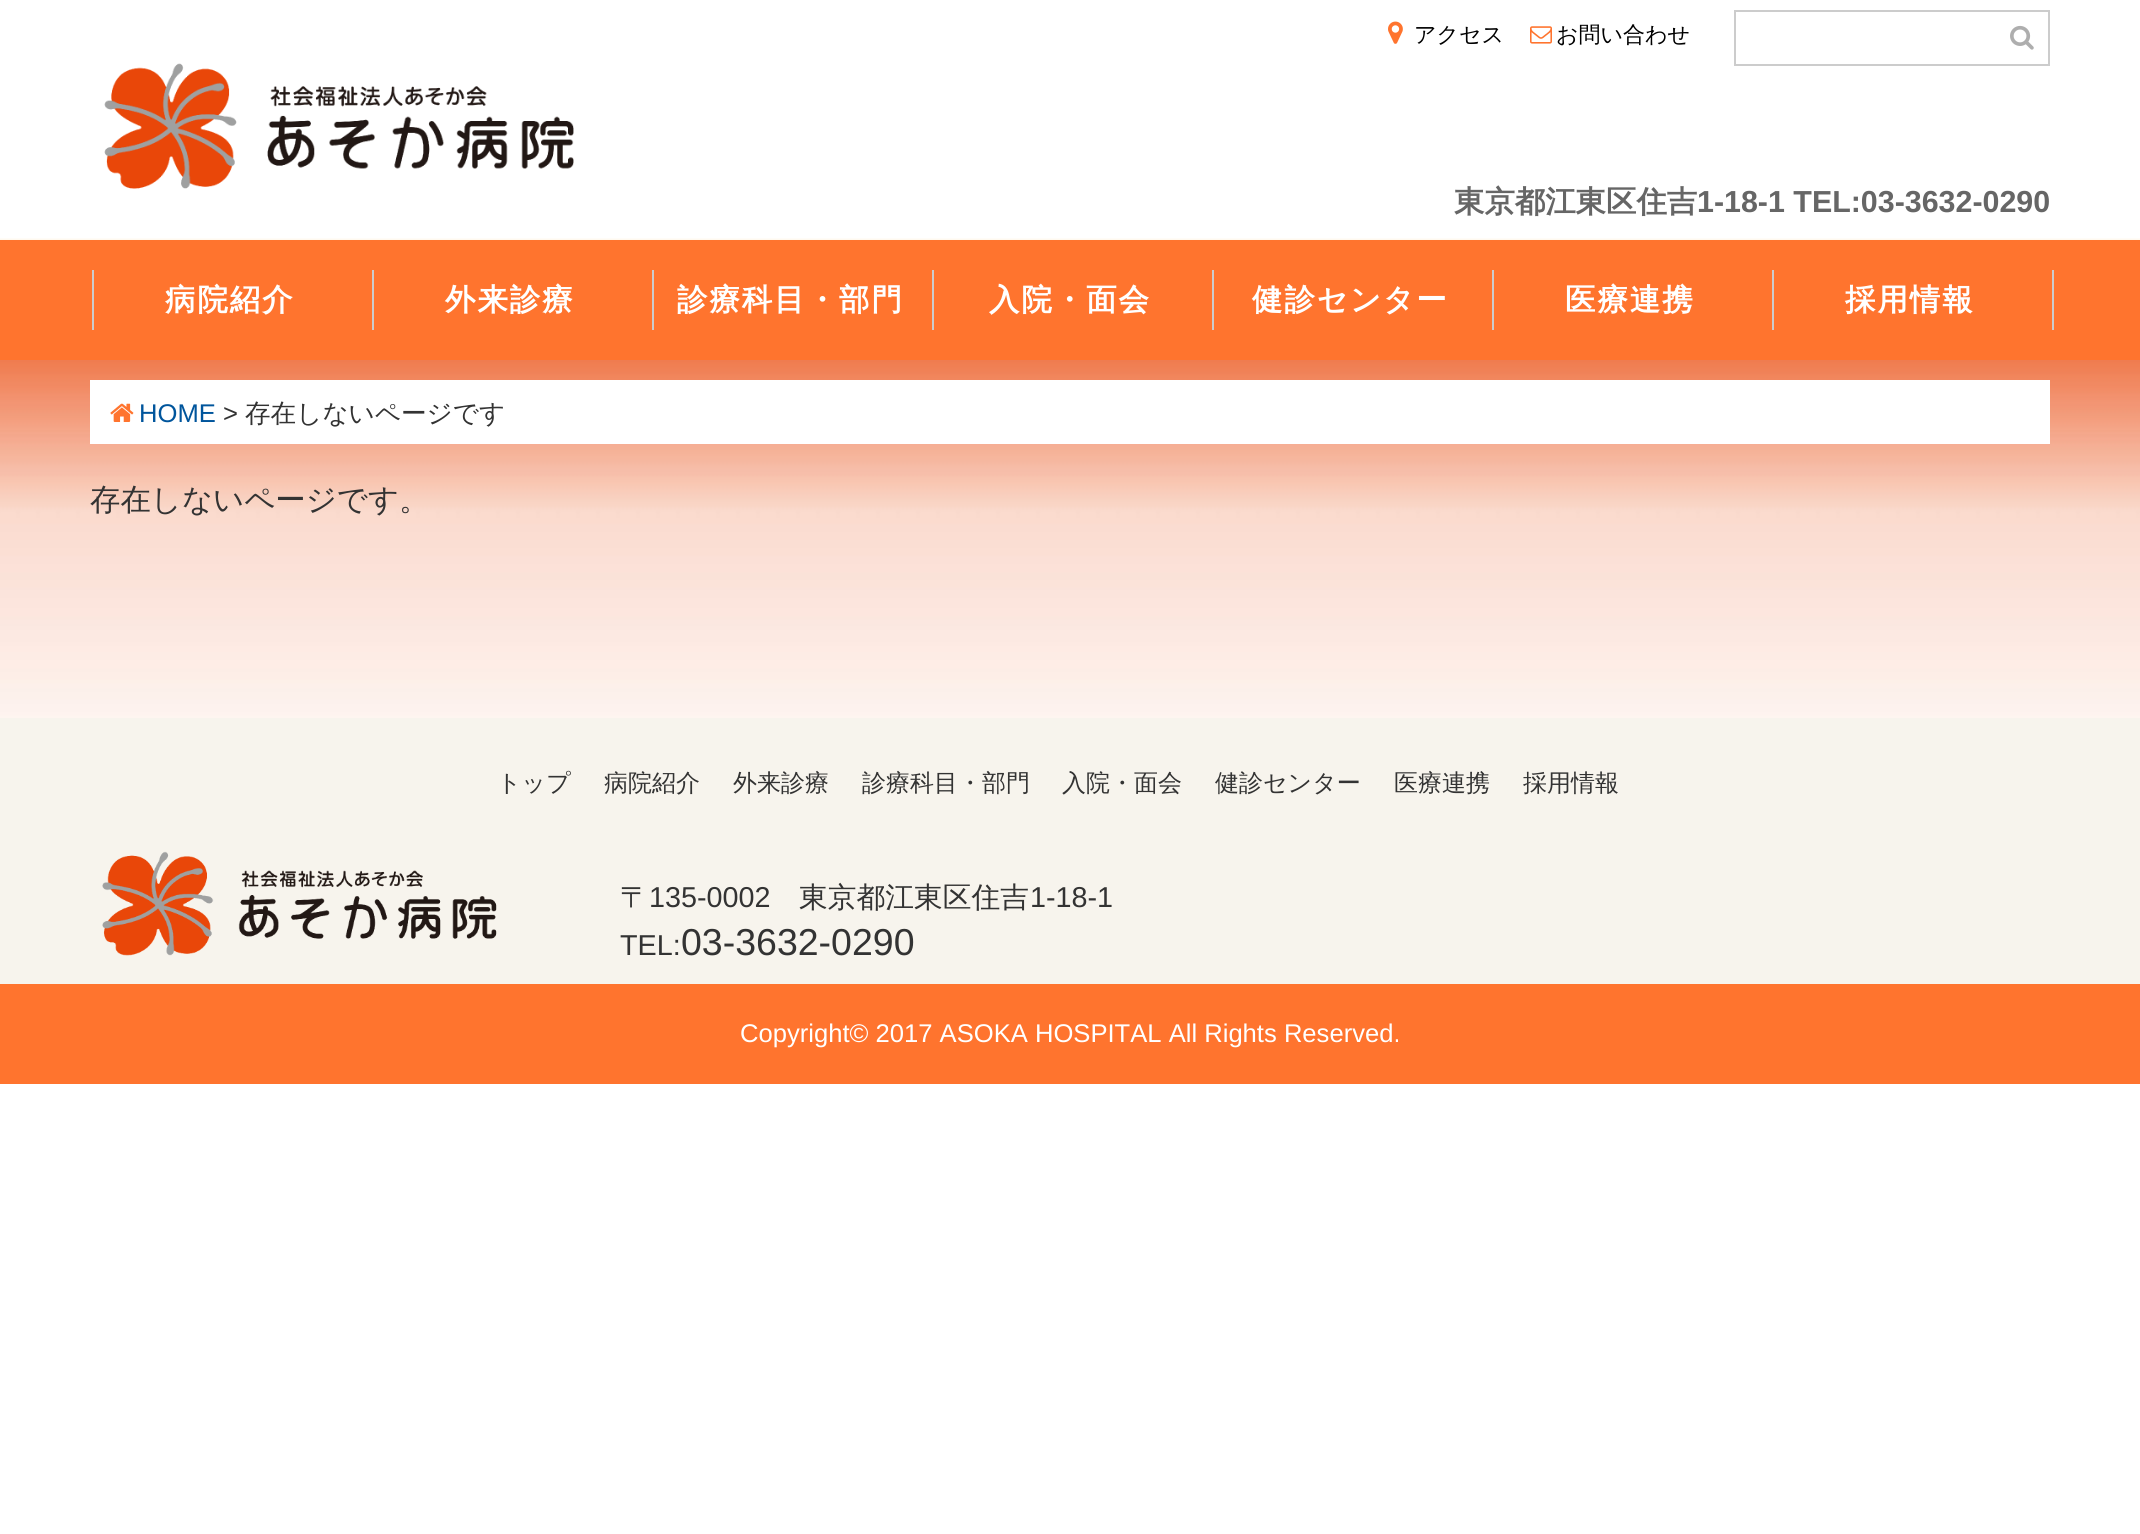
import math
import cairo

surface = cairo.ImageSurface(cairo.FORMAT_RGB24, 2140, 1534)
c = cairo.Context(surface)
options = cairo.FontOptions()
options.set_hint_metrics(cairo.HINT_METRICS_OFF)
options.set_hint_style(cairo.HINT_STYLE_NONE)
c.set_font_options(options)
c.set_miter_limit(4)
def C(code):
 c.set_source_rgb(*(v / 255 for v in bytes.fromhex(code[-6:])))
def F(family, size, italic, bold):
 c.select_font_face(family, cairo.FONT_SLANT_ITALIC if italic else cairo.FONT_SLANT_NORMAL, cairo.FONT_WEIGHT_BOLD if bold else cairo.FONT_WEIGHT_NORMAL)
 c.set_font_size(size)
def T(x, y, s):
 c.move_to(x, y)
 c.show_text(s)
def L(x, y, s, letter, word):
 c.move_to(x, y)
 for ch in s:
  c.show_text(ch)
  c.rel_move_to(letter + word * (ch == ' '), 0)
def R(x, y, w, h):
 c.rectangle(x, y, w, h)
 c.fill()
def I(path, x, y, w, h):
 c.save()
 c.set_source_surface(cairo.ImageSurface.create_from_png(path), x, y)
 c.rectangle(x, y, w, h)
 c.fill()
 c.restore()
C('ffffff')
c.paint()
I('1.png',0,238,2140,480)
I('2.png',1388,21,15,23)
F('WenQuanYi Zen Hei Medium',22,0,0)
C('000000')
T(1414,42,'アクセス')
I('3.png',1530,26,22,18)
T(1556,42,'お問い合わせ')
c.rectangle(1735,11,314,54)
C('cccccc')
c.stroke()
I('4.png',2010,25,24,25)
I('5.png',104,63,470,126)
F('WenQuanYi Zen Hei',30.4,0,1)
C('666666')
T(1454,212,'東京都江東区住吉')
F('Liberation Sans',30.4,0,1)
T(1697,212,'1-18-1 TEL:03-3632-0290')
C('ff742e')
R(0,240,2140,120)
C('cccccc')
R(92,270,2,60)
F('WenQuanYi Zen Hei',30.4,0,1)
C('ffffff')
L(165,310,'病院紹介',2,0)
C('cccccc')
R(372,270,2,60)
C('ffffff')
L(445,310,'外来診療',2,0)
C('cccccc')
R(652,270,2,60)
C('ffffff')
L(677,310,'診療科目・部門',2,0)
C('cccccc')
R(932,270,2,60)
C('ffffff')
L(989,310,'入院・面会',2,0)
C('cccccc')
R(1212,270,2,60)
C('ffffff')
L(1252,310,'健診センター',2,0)
C('cccccc')
R(1492,270,2,60)
C('ffffff')
L(1565,310,'医療連携',2,0)
C('cccccc')
R(1772,270,2,60)
C('ffffff')
L(1845,310,'採用情報',2,0)
C('cccccc')
R(2052,270,2,60)
C('ffffff')
R(90,380,1960,64)
I('6.png',110,403,24,19)
F('Liberation Sans',25.6,0,0)
C('00559c')
T(139,422,'HOME')
C('333333')
T(223,422,'>')
F('WenQuanYi Zen Hei Medium',25.6,0,0)
T(245,422,'存在しないページです')
F('WenQuanYi Zen Hei Medium',30.4,0,0)
T(90,510,'存在しないページです。')
C('f7f4ed')
R(0,718,2140,266)
F('WenQuanYi Zen Hei Medium',24,0,0)
C('333333')
T(497,791,'トップ')
T(604,791,'病院紹介')
T(733,791,'外来診療')
T(862,791,'診療科目・部門')
T(1062,791,'入院・面会')
T(1215,791,'健診センター')
T(1394,791,'医療連携')
T(1523,791,'採用情報')
I('7.png',102,851,395,105)
F('WenQuanYi Zen Hei Medium',28.75,0,0)
T(620,907,'〒')
F('Liberation Sans',28.75,0,0)
T(649,907,'135-0002')
F('WenQuanYi Zen Hei Medium',28.75,0,0)
T(799,907,'東京都江東区住吉')
F('Liberation Sans',28.75,0,0)
T(1030,907,'1-18-1')
T(620,955,'TEL:')
F('Liberation Sans',37.5,0,0)
T(681,955,'03-3632-0290')
C('ff742e')
R(0,984,2140,100)
F('Liberation Sans',25.6,0,0)
C('ffffff')
T(740,1042,'Copyright© 2017 ASOKA HOSPITAL All Rights Reserved.')
surface.write_to_png('o.png')
